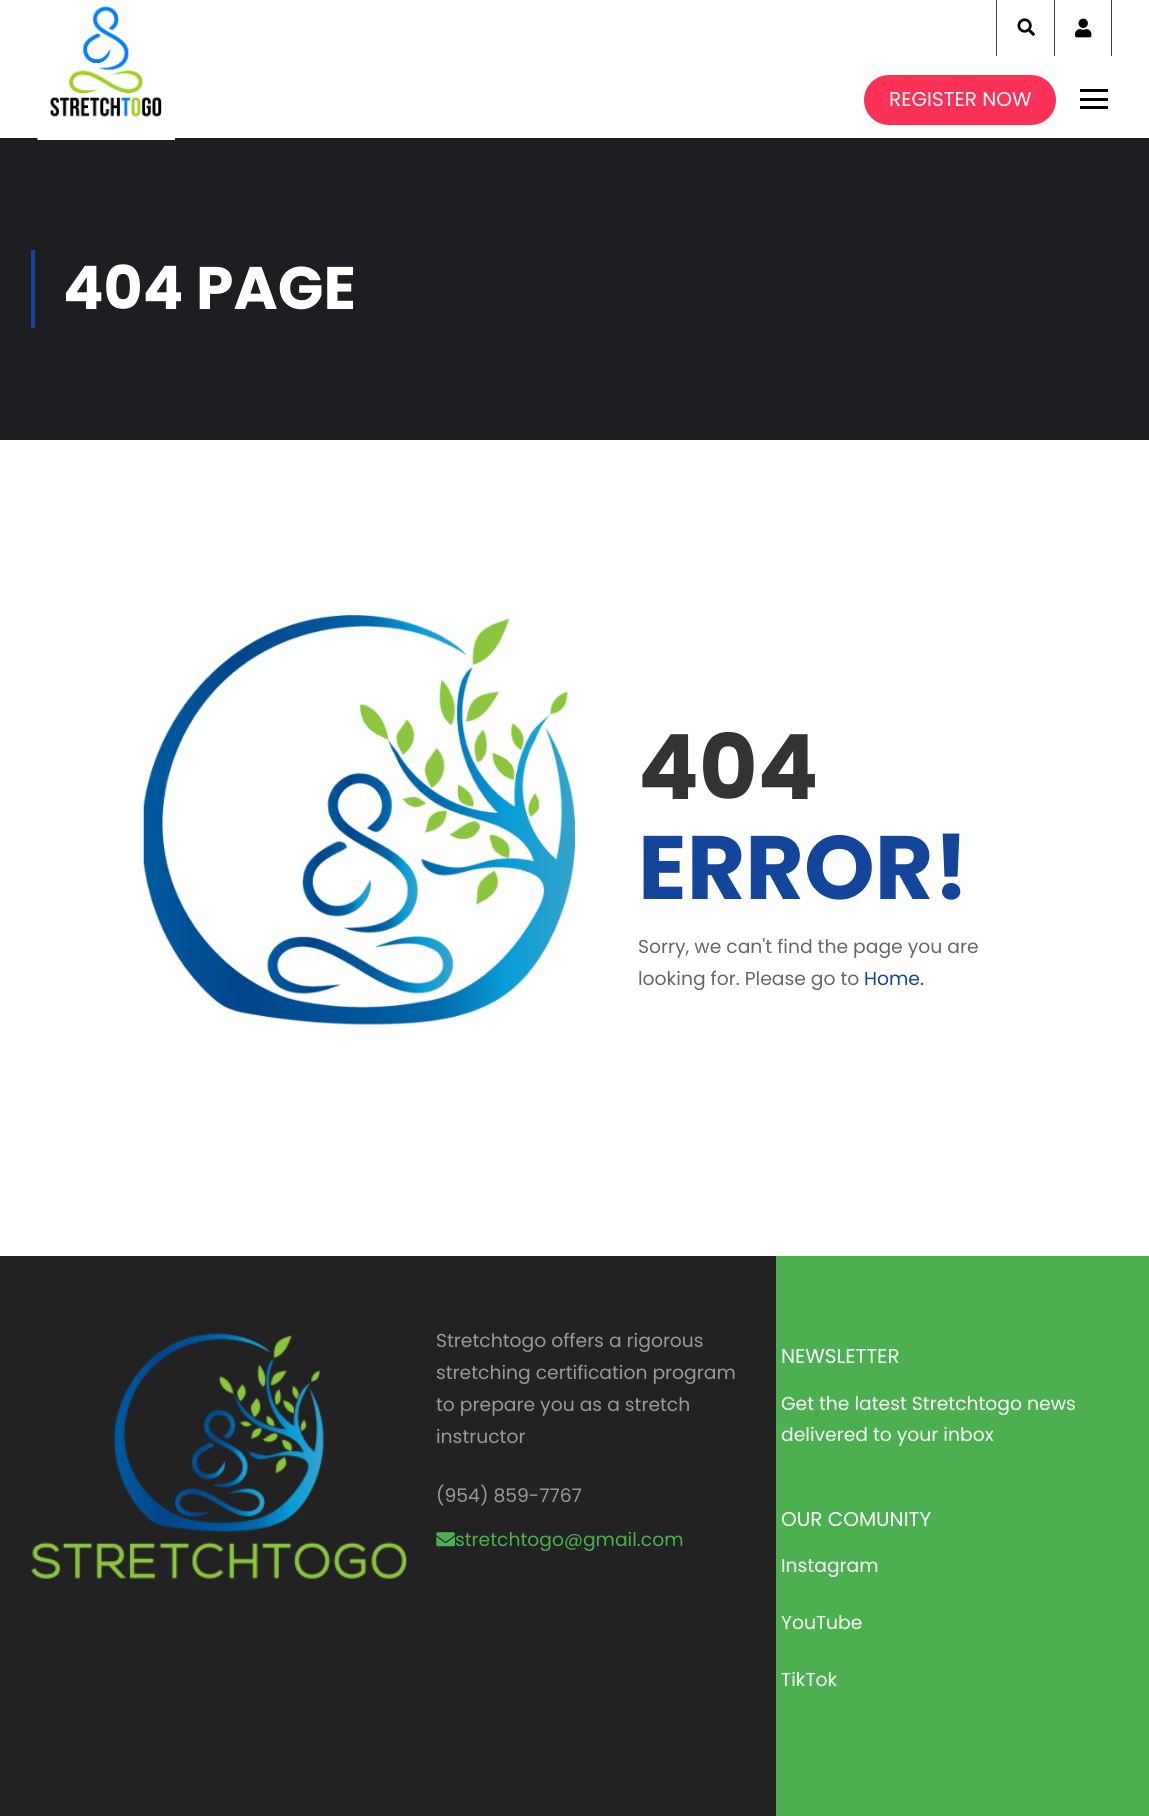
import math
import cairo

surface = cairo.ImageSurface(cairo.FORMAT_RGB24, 1149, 1816)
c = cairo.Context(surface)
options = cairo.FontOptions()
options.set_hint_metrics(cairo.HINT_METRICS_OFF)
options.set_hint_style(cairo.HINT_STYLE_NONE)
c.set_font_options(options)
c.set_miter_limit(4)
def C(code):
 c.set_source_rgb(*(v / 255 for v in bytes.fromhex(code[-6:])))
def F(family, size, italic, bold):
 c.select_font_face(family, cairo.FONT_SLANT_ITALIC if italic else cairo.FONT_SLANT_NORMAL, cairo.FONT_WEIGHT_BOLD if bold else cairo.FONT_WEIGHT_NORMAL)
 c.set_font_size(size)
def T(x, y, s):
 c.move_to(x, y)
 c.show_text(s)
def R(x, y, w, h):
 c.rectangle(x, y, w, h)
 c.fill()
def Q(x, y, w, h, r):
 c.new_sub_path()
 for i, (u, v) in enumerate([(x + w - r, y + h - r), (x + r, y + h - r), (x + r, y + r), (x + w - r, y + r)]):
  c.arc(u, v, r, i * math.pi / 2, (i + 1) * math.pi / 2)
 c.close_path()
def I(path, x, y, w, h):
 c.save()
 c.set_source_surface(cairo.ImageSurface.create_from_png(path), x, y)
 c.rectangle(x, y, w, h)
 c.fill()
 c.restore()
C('ffffff')
c.paint()
C('444444')
R(996,0,1,56)
I('1.png',1017,18,18,18)
R(1111,0,1,56)
R(1054,0,1,56)
I('2.png',1075,18,17,20)
C('1c1e22')
R(0,138,1149,302)
I('3.png',37,6,138,134)
C('fc3158')
Q(864,75,192,50,25)
c.fill()
F('Poppins',20,0,0)
C('ffffff')
T(889,106,'REGISTER NOW')
C('000000')
R(1080,89,28,3)
R(1080,98,28,3)
R(1080,106,28,3)
C('13469a')
R(31,250,4,78)
F('Poppins',60,0,1)
C('ffffff')
T(63,309,'404 PAGE')
I('4.png',143,615,432,410)
F('Poppins',90,0,1)
C('333333')
T(638,799,'404')
C('13469a')
T(638,899,'ERROR!')
F('Poppins',18.75,0,0)
C('666666')
T(638,953,'Sorry, we can\'t find the page you are')
T(638,985,'looking for. Please go to')
C('13469a')
T(864,985,'Home.')
C('222222')
R(0,1256,776,560)
C('4caf50')
R(776,1256,373,560)
I('5.png',31,1333,376,246)
C('999999')
T(436,1347,'Stretchtogo offers a rigorous')
T(436,1379,'stretching certification program')
T(436,1411,'to prepare you as a stretch')
T(436,1443,'instructor')
T(436,1502,'(954) 859-7767')
I('6.png',436,1532,19,15)
C('4caf50')
T(455,1546,'stretchtogo@gmail.com')
F('Poppins',20,0,0)
C('ffffff')
T(781,1363,'NEWSLETTER')
F('Poppins',18.75,0,0)
T(781,1410,'Get the latest Stretchtogo news')
T(781,1441,'delivered to your inbox')
F('Poppins',20,0,0)
T(781,1526,'OUR COMUNITY')
F('Poppins',18.75,0,0)
T(781,1572,'Instagram')
T(781,1629,'YouTube')
T(781,1686,'TikTok')
surface.write_to_png('o.png')
